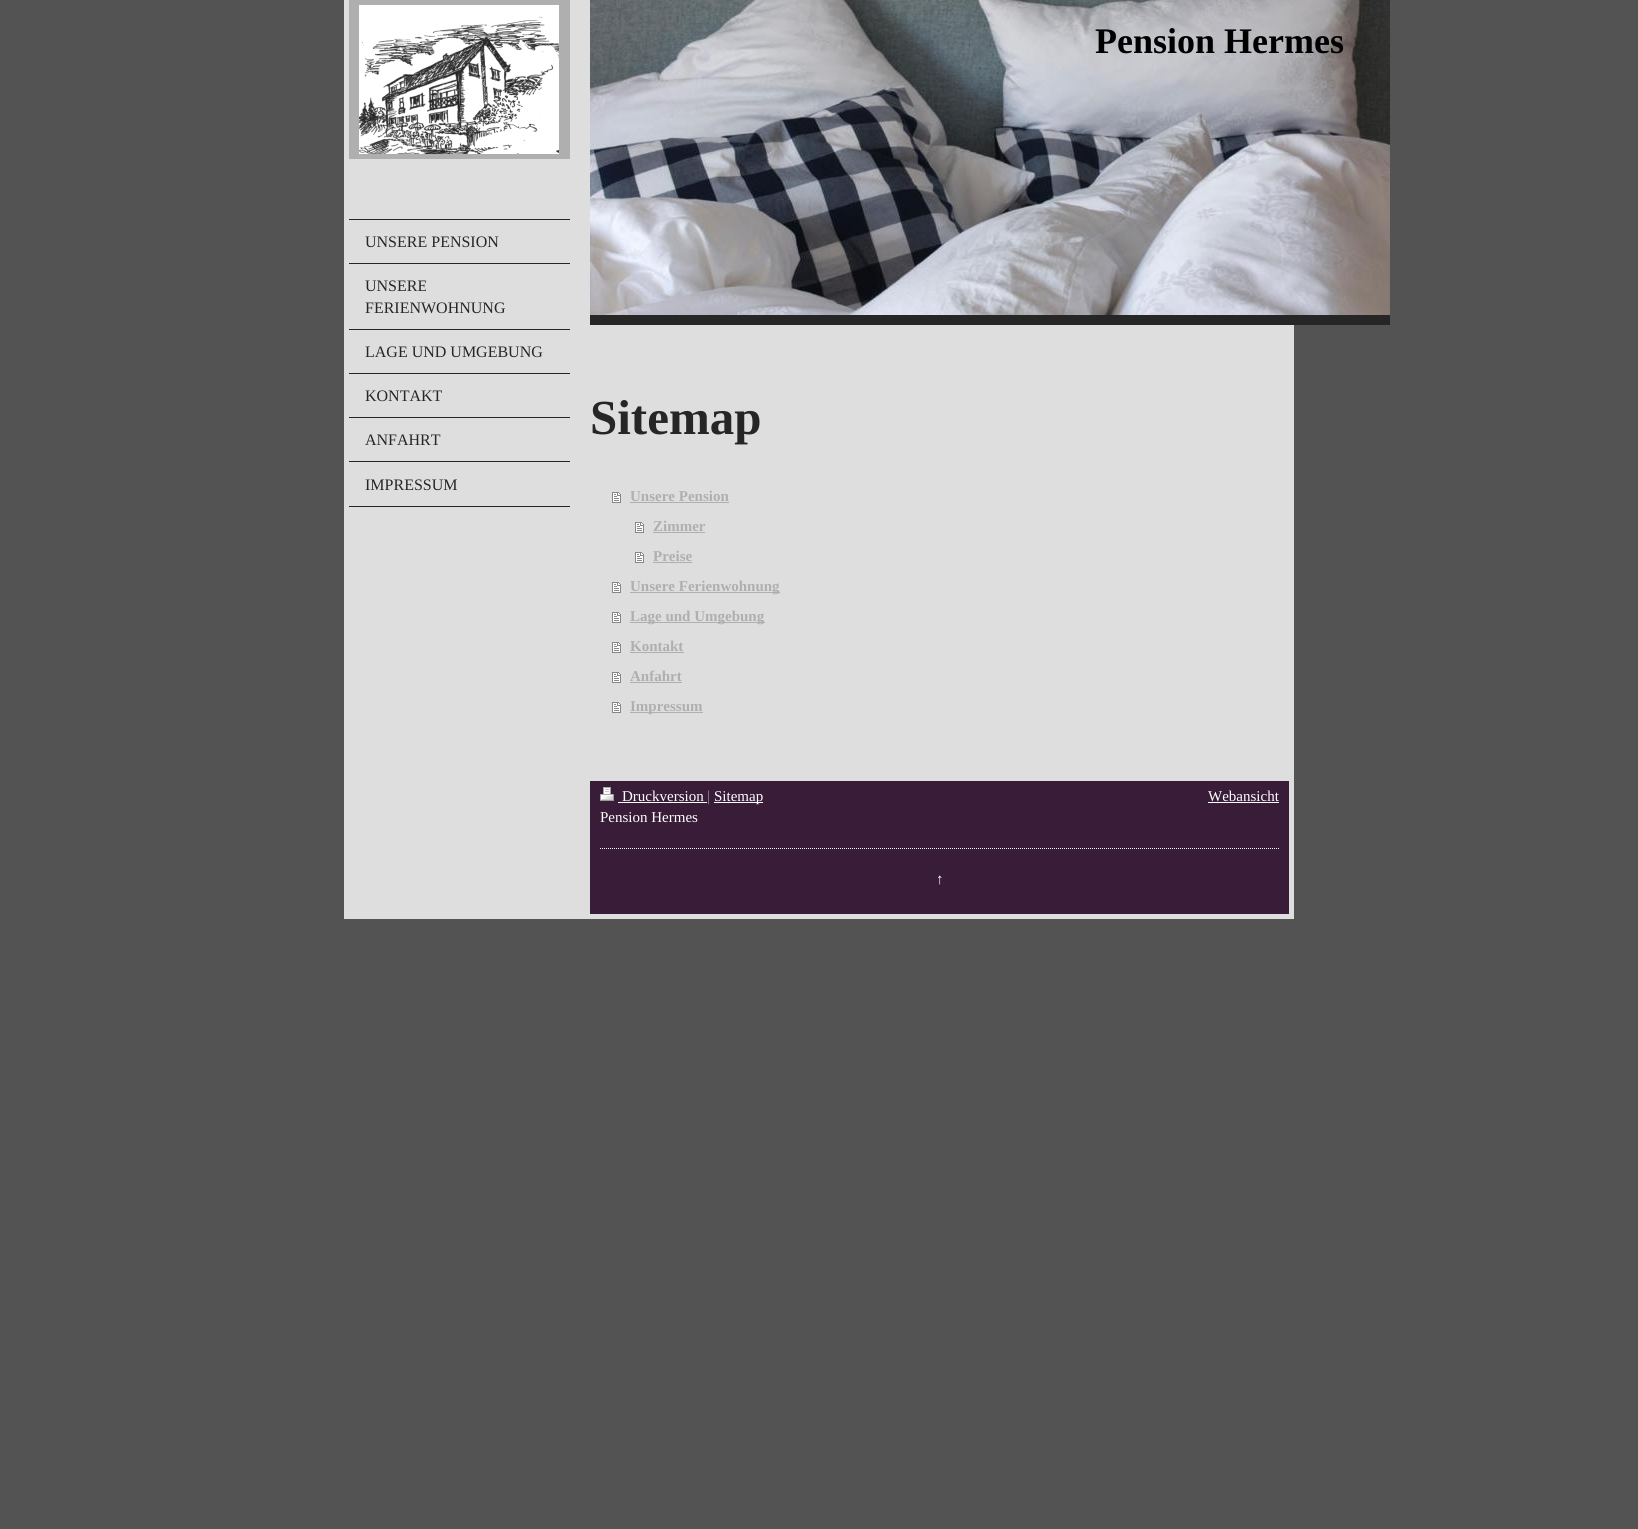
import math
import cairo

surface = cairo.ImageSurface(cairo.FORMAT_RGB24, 1638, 1529)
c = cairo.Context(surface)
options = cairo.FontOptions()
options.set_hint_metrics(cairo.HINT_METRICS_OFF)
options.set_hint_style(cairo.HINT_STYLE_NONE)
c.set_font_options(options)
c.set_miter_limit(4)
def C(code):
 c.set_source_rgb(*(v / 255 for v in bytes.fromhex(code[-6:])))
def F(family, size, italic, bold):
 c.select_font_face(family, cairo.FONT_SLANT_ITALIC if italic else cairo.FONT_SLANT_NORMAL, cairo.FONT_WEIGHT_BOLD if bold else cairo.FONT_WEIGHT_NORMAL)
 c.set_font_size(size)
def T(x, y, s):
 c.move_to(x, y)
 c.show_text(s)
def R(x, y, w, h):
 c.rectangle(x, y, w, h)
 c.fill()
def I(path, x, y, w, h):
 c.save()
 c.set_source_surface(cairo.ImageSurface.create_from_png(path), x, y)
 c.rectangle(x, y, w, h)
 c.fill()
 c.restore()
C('535353')
c.paint()
C('dedede')
R(344,0,950,919)
C('afafaf')
R(349,0,221,159)
I('1.png',359,5,200,149)
C('262626')
R(349,219,221,1)
R(349,263,221,1)
F('Liberation Serif',16,0,0)
T(365,247,'UNSERE PENSION')
R(349,329,221,1)
T(365,291,'UNSERE')
T(365,313,'FERIENWOHNUNG')
R(349,373,221,1)
T(365,357,'LAGE UND UMGEBUNG')
R(349,417,221,1)
T(365,401,'KONTAKT')
R(349,461,221,1)
T(365,445,'ANFAHRT')
R(349,506,221,1)
T(365,490,'IMPRESSUM')
R(590,315,800,10)
I('2.png',590,0,800,315)
F('Liberation Serif',36,0,1)
C('000000')
T(1095,53,'Pension Hermes')
F('Liberation Serif',49,0,1)
C('262626')
T(590,434,'Sitemap')
I('3.png',612,492,9,11)
F('Liberation Serif',15,0,1)
C('afafaf')
T(630,501,'Unsere Pension')
R(630,502,99,1)
I('3.png',635,522,9,11)
T(653,531,'Zimmer')
R(653,532,52,1)
I('3.png',635,552,9,11)
T(653,561,'Preise')
R(653,562,39,1)
I('3.png',612,582,9,11)
R(630,592,150,1)
T(630,591,'Unsere Ferienwohnung')
I('3.png',612,612,9,11)
R(630,622,135,1)
T(630,621,'Lage und Umgebung')
I('3.png',612,642,9,11)
T(630,651,'Kontakt')
R(630,652,54,1)
I('3.png',612,672,9,11)
T(630,681,'Anfahrt')
R(630,682,52,1)
I('3.png',612,702,9,11)
R(630,712,73,1)
T(630,711,'Impressum')
C('381c38')
R(590,781,699,133)
I('4.png',600,787,14,14)
C('ffffff')
R(618,802,89,1)
F('Liberation Serif',15,0,0)
T(622,801,'Druckversion |')
R(714,802,49,1)
T(714,801,'Sitemap')
T(600,822,'Pension Hermes')
T(1208,801,'Webansicht')
R(1208,802,71,1)
c.new_path()
c.move_to(600,848.5)
c.line_to(1279,848.5)
c.set_line_width(1)
c.set_dash([1,1])
c.stroke()
T(936,884,'↑')
surface.write_to_png('o.png')
